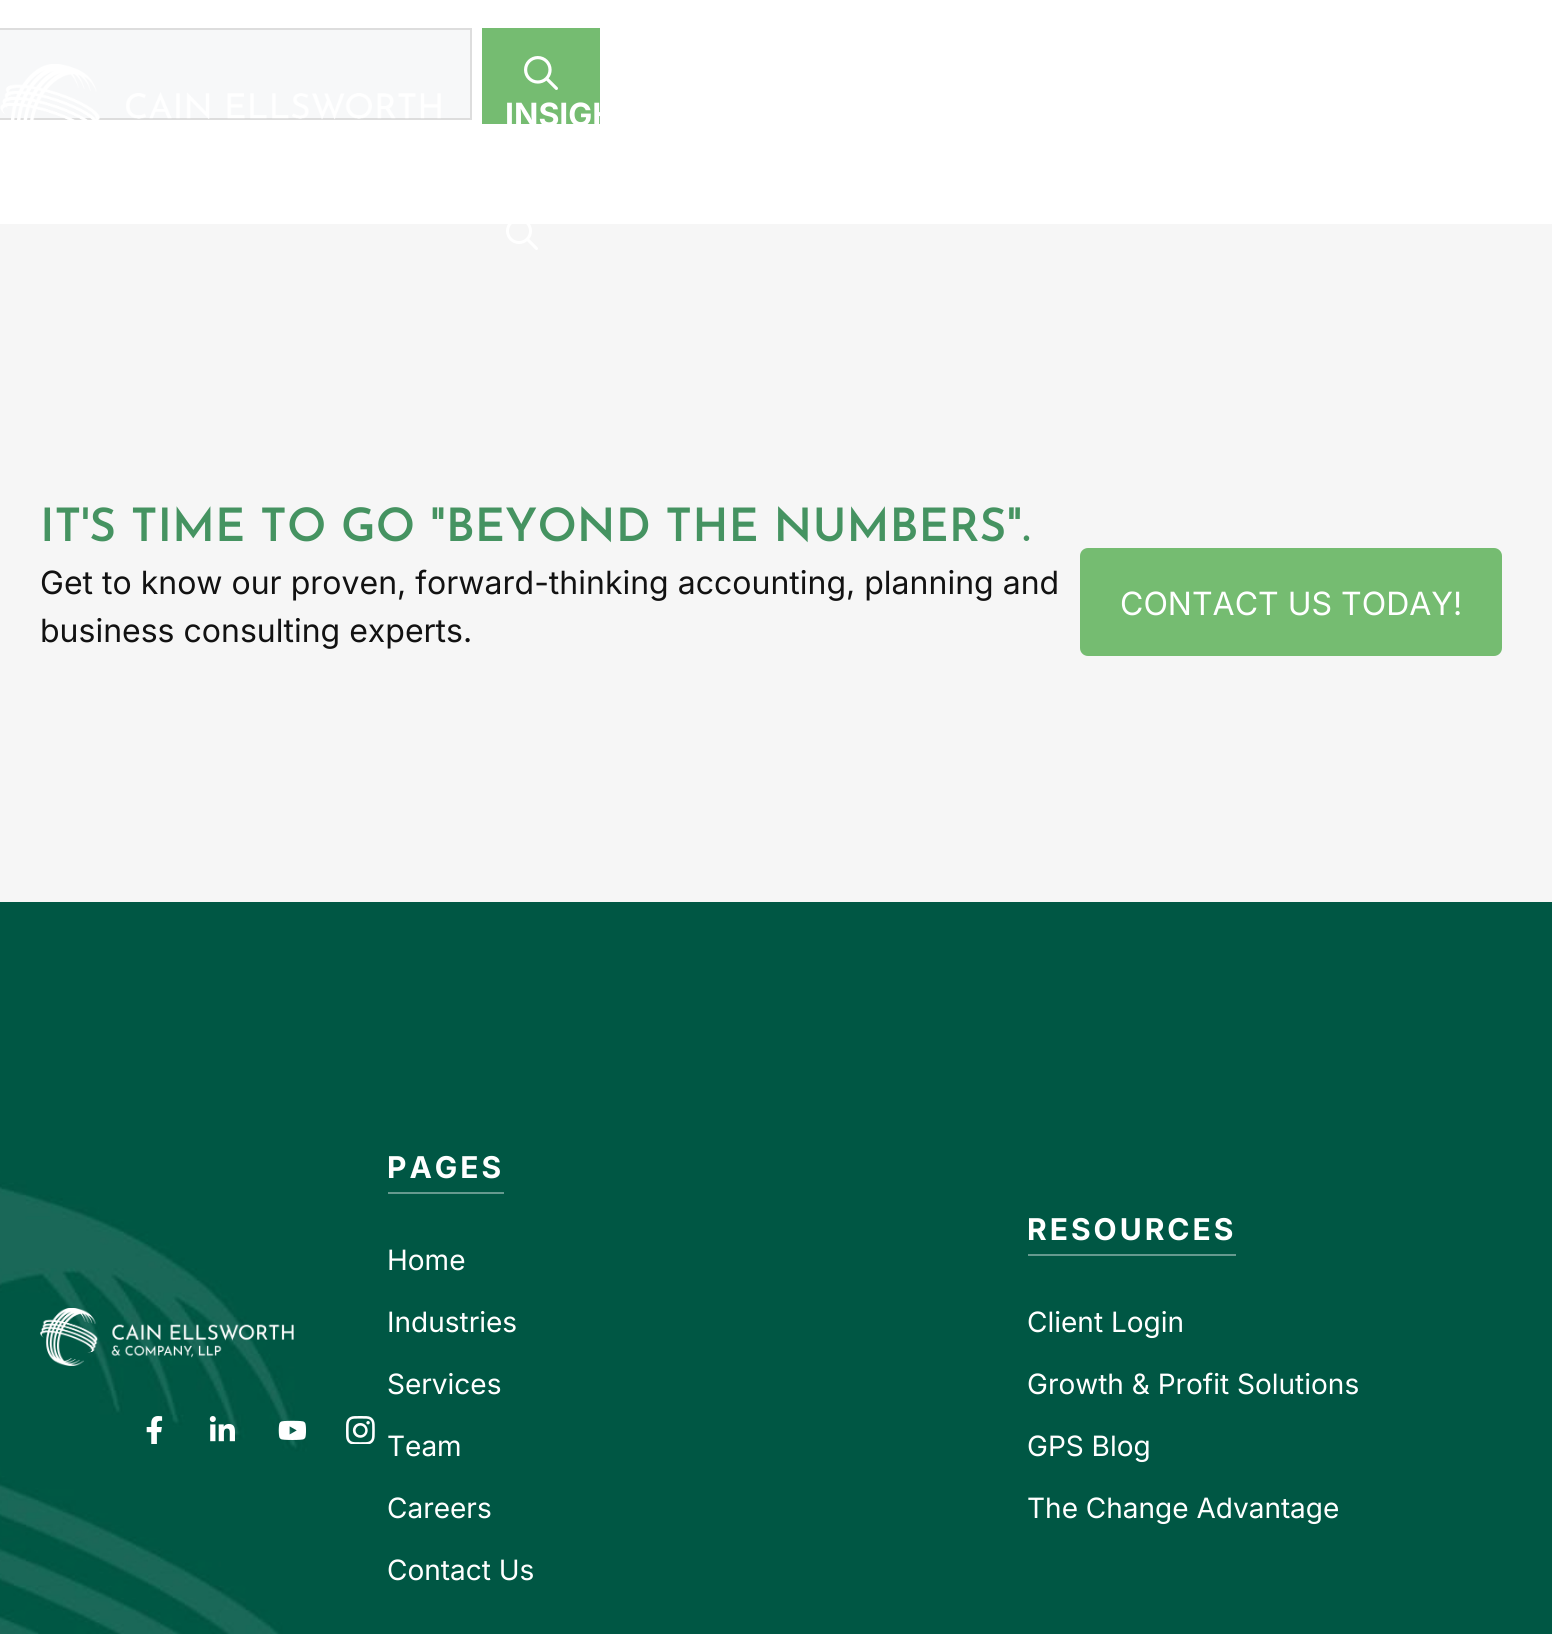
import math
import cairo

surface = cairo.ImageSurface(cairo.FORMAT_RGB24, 1552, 1634)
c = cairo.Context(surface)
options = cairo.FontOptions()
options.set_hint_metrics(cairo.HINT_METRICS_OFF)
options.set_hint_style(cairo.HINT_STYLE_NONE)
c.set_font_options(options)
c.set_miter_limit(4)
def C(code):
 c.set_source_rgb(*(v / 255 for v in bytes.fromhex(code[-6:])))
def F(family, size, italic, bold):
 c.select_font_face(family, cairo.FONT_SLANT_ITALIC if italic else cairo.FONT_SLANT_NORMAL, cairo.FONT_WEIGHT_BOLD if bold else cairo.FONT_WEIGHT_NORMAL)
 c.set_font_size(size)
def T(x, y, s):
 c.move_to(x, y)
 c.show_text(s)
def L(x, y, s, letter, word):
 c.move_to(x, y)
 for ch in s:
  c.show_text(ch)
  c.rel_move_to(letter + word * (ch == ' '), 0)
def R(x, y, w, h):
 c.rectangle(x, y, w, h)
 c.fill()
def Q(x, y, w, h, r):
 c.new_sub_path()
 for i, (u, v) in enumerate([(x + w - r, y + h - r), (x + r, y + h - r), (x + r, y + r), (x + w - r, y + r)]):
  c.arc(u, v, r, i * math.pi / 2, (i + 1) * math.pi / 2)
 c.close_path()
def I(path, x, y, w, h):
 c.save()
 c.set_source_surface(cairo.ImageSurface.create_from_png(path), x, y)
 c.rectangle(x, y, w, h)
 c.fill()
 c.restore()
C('ffffff')
c.paint()
C('f7f8f9')
c.rectangle(-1,29,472,90)
c.fill_preserve()
C('dddddd')
c.stroke()
C('75bc71')
R(482,28,118,96)
I('1.png',524,56,34,34)
I('2.png',0,64,441,56)
F('Inter',32,0,1)
C('ffffff')
T(505,126,'INSIGH')
C('f6f6f6')
R(0,224,1552,678)
I('3.png',506,224,32,26)
F('Josefin Sans SemiBold',46,0,0)
C('459361')
T(40,541,'IT\'S TIME TO GO "BEYOND THE NUMBERS".')
F('Inter',32,0,0)
C('121212')
T(40,594,'Get to know our proven, forward-thinking accounting, planning and')
T(40,642,'business consulting experts.')
C('75bc71')
Q(1080,548,422,108,8)
c.fill()
C('ffffff')
T(1120,615,'CONTACT US TODAY!')
I('4.png',0,902,1552,732)
I('5.png',40,1308,254,58)
I('6.png',146,1416,17,28)
I('7.png',209,1416,26,26)
I('8.png',278,1420,28,20)
I('9.png',346,1416,29,28)
C('669a8f')
R(388,1192,116,2)
F('Inter',30,0,1)
C('ffffff')
L(387,1178,'PAGES',3,0)
F('Inter',28,0,0)
T(387,1270,'Home')
T(387,1332,'Industries')
T(387,1394,'Services')
T(387,1456,'Team')
T(387,1518,'Careers')
T(387,1580,'Contact Us')
C('669a8f')
R(1028,1254,208,2)
F('Inter',30,0,1)
C('ffffff')
L(1027,1240,'RESOURCES',3,0)
F('Inter',28,0,0)
T(1027,1332,'Client Login')
T(1027,1394,'Growth & Profit Solutions')
T(1027,1456,'GPS Blog')
T(1027,1518,'The Change Advantage')
surface.write_to_png('o.png')
